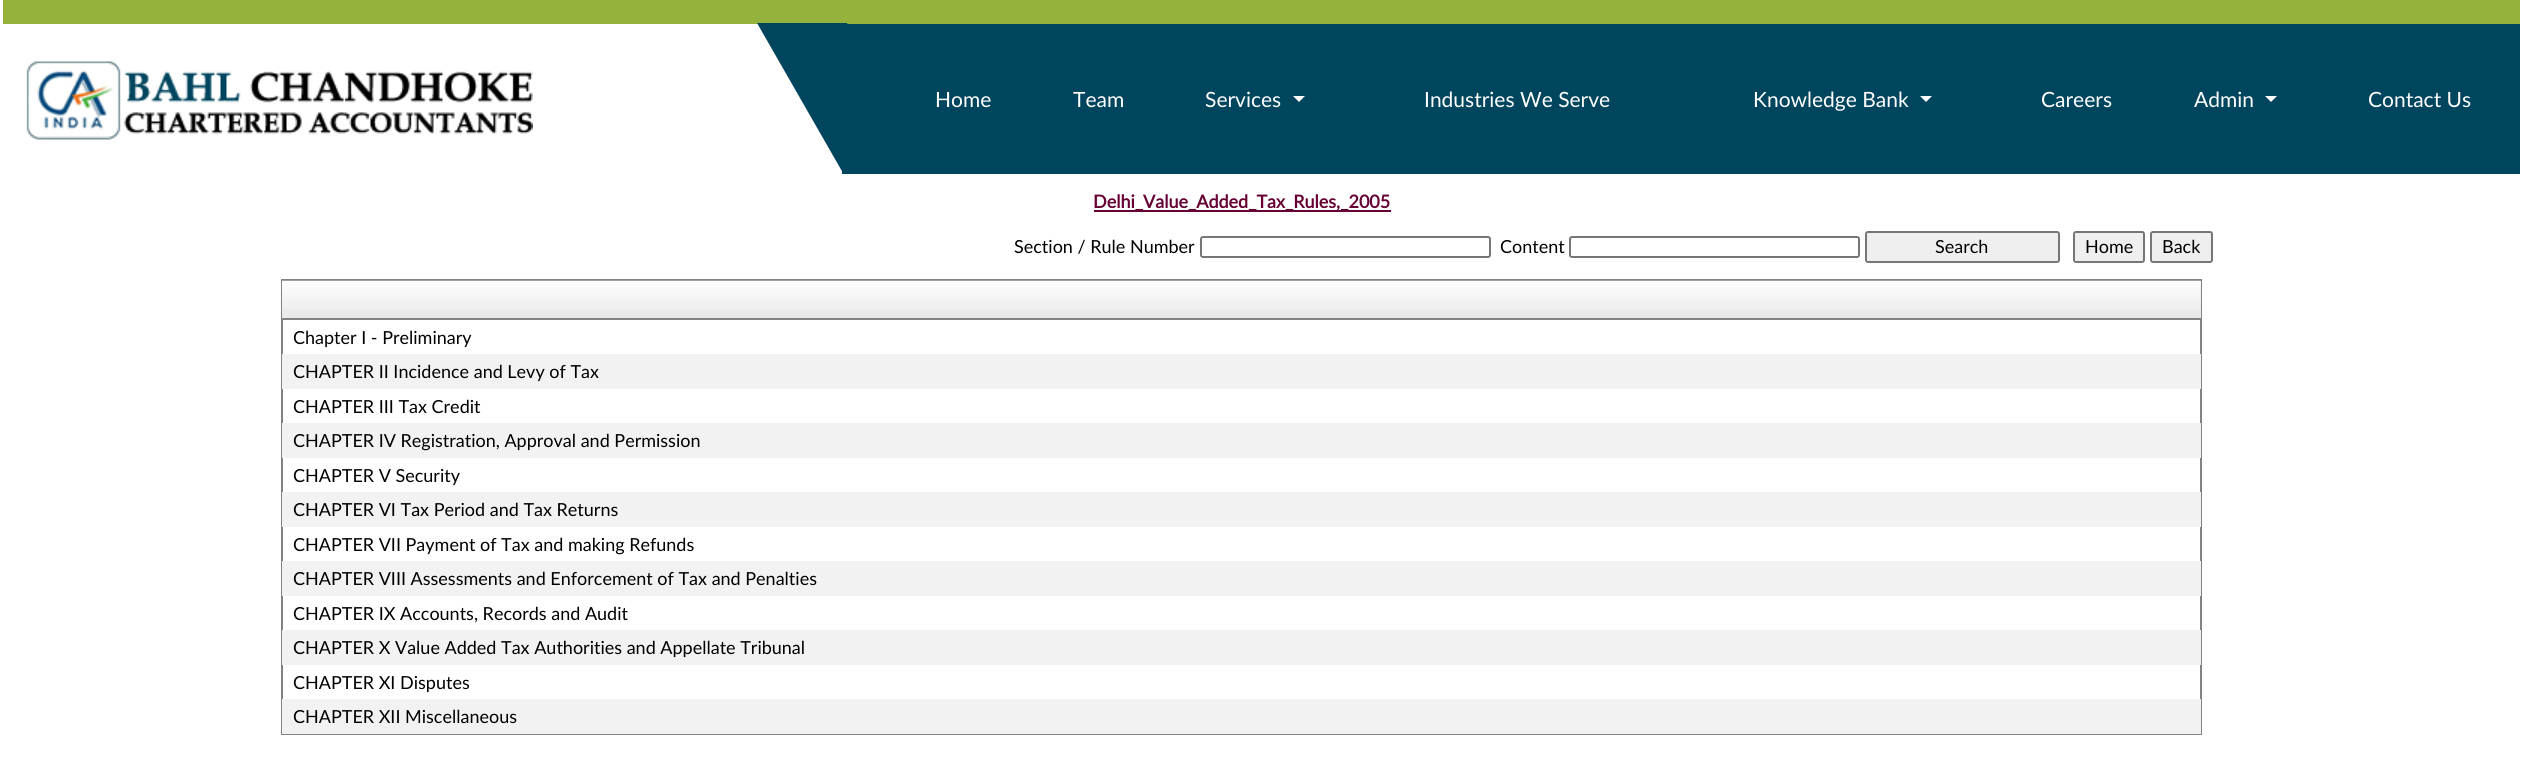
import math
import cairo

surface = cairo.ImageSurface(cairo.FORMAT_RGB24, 2523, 764)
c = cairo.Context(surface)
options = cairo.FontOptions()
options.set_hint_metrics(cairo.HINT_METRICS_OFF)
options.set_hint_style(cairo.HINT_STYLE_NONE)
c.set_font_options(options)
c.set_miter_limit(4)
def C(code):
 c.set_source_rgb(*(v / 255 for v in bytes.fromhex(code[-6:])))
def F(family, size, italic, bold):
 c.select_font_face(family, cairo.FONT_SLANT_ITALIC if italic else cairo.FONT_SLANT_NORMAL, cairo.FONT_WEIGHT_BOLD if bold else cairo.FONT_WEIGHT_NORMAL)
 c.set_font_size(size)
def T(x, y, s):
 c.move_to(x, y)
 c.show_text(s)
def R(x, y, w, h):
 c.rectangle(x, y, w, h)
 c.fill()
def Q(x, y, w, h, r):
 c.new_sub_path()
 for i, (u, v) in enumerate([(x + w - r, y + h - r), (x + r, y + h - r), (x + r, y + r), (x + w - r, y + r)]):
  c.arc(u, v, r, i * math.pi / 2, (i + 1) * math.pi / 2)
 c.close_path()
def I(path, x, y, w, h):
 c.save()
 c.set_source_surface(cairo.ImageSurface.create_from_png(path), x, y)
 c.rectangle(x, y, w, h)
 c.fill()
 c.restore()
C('ffffff')
c.paint()
C('95b33c')
R(3,0,2517,24)
I('1.png',26,61,507,79)
C('00455e')
R(842,24,1678,150)
c.new_path()
c.move_to(757,23)
c.line_to(847,23)
c.line_to(933,173)
c.line_to(843,173)
c.close_path()
c.fill()
F('Lato',21,0,0)
C('ffffff')
T(935,107,'Home')
T(1073,107,'Team')
T(1205,107,'Services')
c.new_path()
c.move_to(1293,96)
c.line_to(1305,96)
c.line_to(1299,102)
c.close_path()
c.fill()
T(1424,107,'Industries We Serve')
T(1753,107,'Knowledge Bank')
c.new_path()
c.move_to(1920,96)
c.line_to(1932,96)
c.line_to(1926,102)
c.close_path()
c.fill()
T(2041,107,'Careers')
T(2194,107,'Admin')
c.new_path()
c.move_to(2265,96)
c.line_to(2277,96)
c.line_to(2271,102)
c.close_path()
c.fill()
T(2368,107,'Contact Us')
C('660033')
R(1094,210,297,2)
F('Lato',18,0,1)
T(1093,208,'Delhi_Value_Added_Tax_Rules,_2005')
F('Lato',18,0,0)
C('000000')
T(1014,253,'Section / Rule Number')
Q(1201,237,289,20,2)
C('767676')
c.stroke()
C('000000')
T(1500,253,'Content')
Q(1570,237,289,20,2)
C('767676')
c.stroke()
C('efefef')
Q(1866,232,193,30,2)
c.fill_preserve()
C('767676')
c.stroke()
C('000000')
T(1935,253,'Search')
C('efefef')
Q(2074,232,70,30,2)
c.fill_preserve()
C('767676')
c.stroke()
C('000000')
T(2085,253,'Home')
C('efefef')
Q(2151,232,61,30,2)
c.fill_preserve()
C('767676')
c.stroke()
C('000000')
T(2162,253,'Back')
c.rectangle(282,280,1919,454)
C('828282')
c.stroke()
C('eaeaea')
R(282,281,1919,37)
I('2.png',282,280,1919,29)
C('828282')
R(282,318,1919,2)
C('000000')
T(293,344,'Chapter I - Preliminary')
C('f2f2f2')
R(282,354,1919,35)
C('000000')
T(293,378,'CHAPTER II Incidence and Levy of Tax')
T(293,413,'CHAPTER III Tax Credit')
C('f2f2f2')
R(282,423,1919,35)
C('000000')
T(293,447,'CHAPTER IV Registration, Approval and Permission')
T(293,482,'CHAPTER V Security')
C('f2f2f2')
R(282,492,1919,35)
C('000000')
T(293,516,'CHAPTER VI Tax Period and Tax Returns')
T(293,551,'CHAPTER VII Payment of Tax and making Refunds')
C('f2f2f2')
R(282,561,1919,35)
C('000000')
T(293,585,'CHAPTER VIII Assessments and Enforcement of Tax and Penalties')
T(293,620,'CHAPTER IX Accounts, Records and Audit')
C('f2f2f2')
R(282,630,1919,35)
C('000000')
T(293,654,'CHAPTER X Value Added Tax Authorities and Appellate Tribunal')
T(293,689,'CHAPTER XI Disputes')
C('f2f2f2')
R(282,699,1919,35)
C('000000')
T(293,723,'CHAPTER XII Miscellaneous')
surface.write_to_png('o.png')
